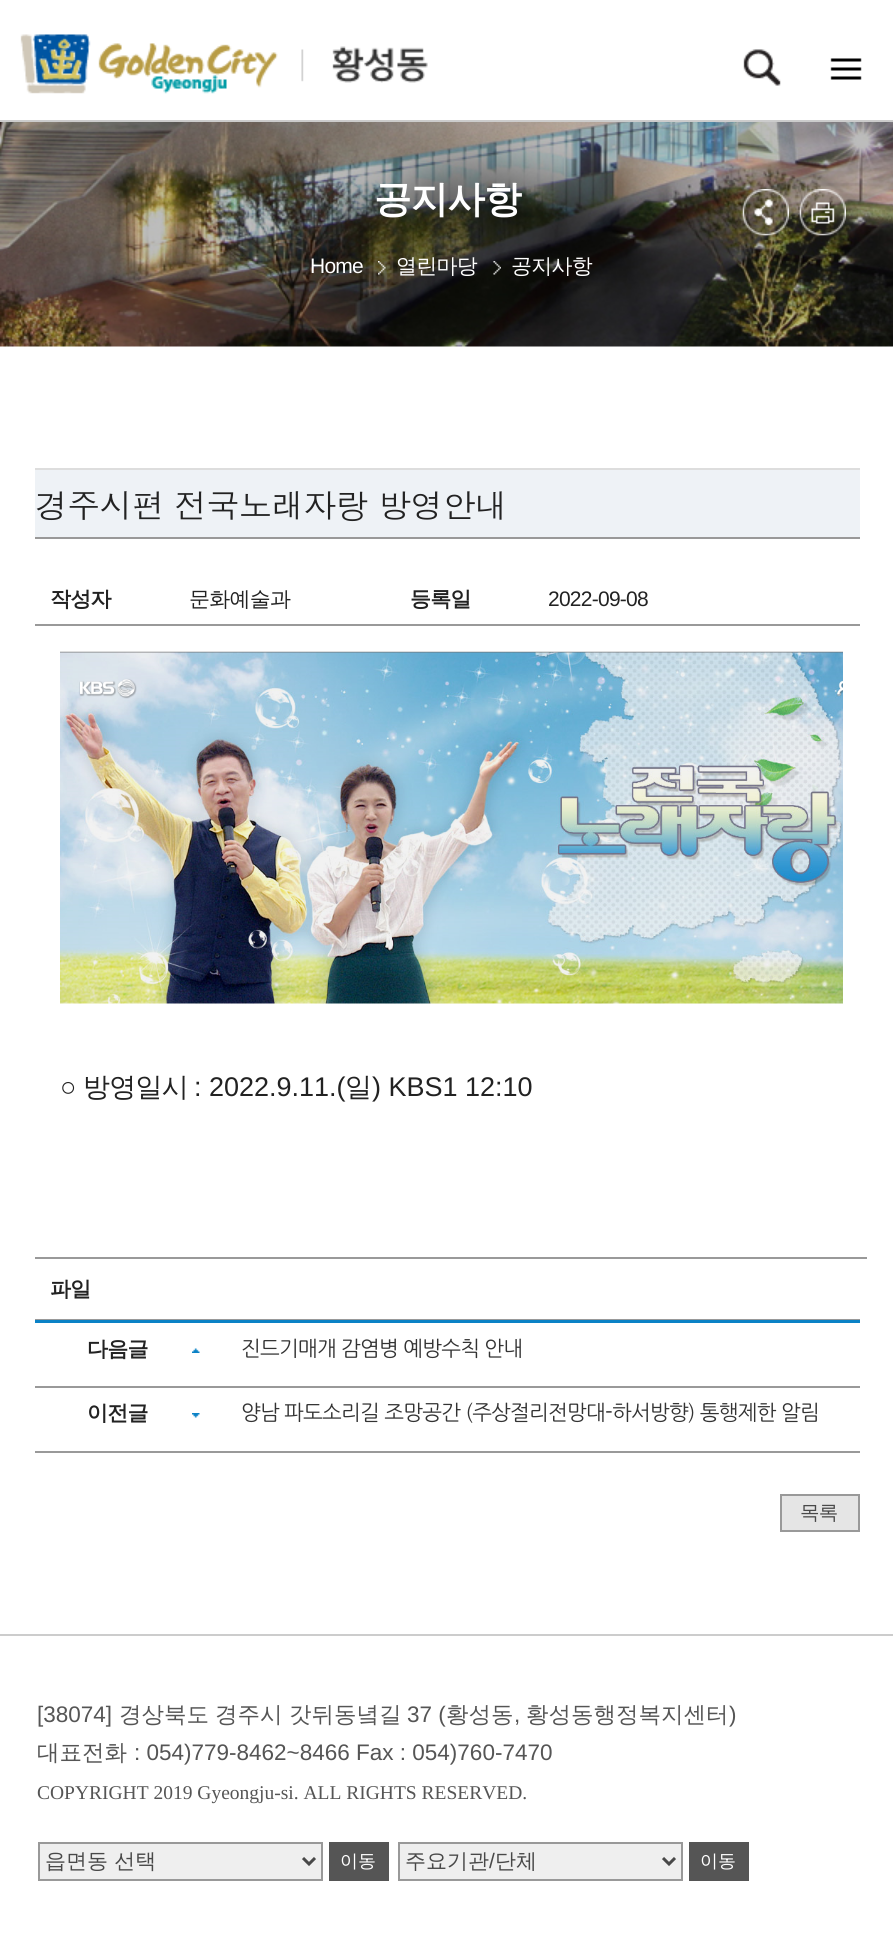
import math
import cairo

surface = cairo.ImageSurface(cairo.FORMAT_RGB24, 893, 1959)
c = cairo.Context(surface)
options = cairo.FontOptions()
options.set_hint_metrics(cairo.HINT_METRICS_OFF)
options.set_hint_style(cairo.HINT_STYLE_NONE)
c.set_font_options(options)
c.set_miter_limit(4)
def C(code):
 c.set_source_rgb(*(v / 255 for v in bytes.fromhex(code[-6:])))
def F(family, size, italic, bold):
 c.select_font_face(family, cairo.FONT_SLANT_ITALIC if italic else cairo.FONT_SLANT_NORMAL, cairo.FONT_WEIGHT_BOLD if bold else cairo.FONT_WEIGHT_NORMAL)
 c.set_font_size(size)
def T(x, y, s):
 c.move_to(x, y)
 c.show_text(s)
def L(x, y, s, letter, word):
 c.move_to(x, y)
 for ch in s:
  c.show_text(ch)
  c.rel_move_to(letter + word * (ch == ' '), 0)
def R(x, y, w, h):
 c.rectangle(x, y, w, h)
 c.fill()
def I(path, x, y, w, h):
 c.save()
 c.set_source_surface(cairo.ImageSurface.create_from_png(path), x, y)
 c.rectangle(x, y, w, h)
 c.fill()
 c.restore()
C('ffffff')
c.paint()
I('1.png',20,34,408,60)
I('2.png',743,49,38,37)
I('3.png',830,58,32,22)
I('4.png',0,122,893,225)
C('cccccc')
R(0,120,893,2)
F('WenQuanYi Zen Hei',37.5,0,1)
C('ffffff')
L(374,212,'공지사항',-.75,0)
I('5.png',742,189,47,47)
I('6.png',799,189,47,47)
F('Liberation Sans',21,0,0)
L(310,273,'Home',-.75,0)
I('7.png',378,261,8,14)
F('WenQuanYi Zen Hei Medium',21,0,0)
L(396,273,'열린마당',-.75,0)
I('8.png',493,261,8,14)
L(511,273,'공지사항',-.75,0)
C('eef2f6')
R(35,470,825,67)
C('dddddd')
R(35,468,825,2)
C('999999')
R(35,537,825,2)
F('Dotum',33,0,0)
C('222222')
L(35,518,'경주시편 전국노래자랑 방영안내',-.75,0)
C('999999')
R(35,624,825,2)
F('WenQuanYi Zen Hei',21,0,1)
C('222222')
L(50,606,'작성자',-.75,0)
F('WenQuanYi Zen Hei Medium',21,0,0)
L(189,606,'문화예술과',-.75,0)
F('WenQuanYi Zen Hei',21,0,1)
L(410,606,'등록일',-.75,0)
F('Liberation Sans',21,0,0)
L(548,606,'2022-09-08',-.75,0)
C('999999')
R(35,1257,832,2)
I('9.png',60,651,783,353)
F('Liberation Serif',27,0,0)
C('222222')
T(60,1096,'○')
F('WenQuanYi Zen Hei Medium',27,0,0)
L(83,1096,'방영일시',-.75,0)
F('Liberation Sans',27,0,0)
T(194,1096,': 2022.9.11.(')
F('WenQuanYi Zen Hei Medium',27,0,0)
L(345,1096,'일',-.75,0)
F('Liberation Sans',27,0,0)
T(372,1096,') KBS1 12:10')
C('999999')
R(35,1319,825,1)
F('WenQuanYi Zen Hei',21,0,1)
C('222222')
L(50,1296,'파일',-.75,0)
C('0b82c6')
R(35,1320,825,3)
C('999999')
R(35,1386,825,2)
I('10.png',192,1348,8,5)
C('222222')
L(87,1356,'다음글',-.75,0)
F('NanumGothic',21,0,0)
C('333333')
L(241,1356,'진드기매개 감염병 예방수칙 안내',-.75,0)
C('999999')
R(35,1451,825,2)
I('11.png',192,1413,8,5)
F('WenQuanYi Zen Hei',21,0,1)
C('222222')
L(87,1420,'이전글',-.75,0)
F('NanumGothic',21,0,0)
C('333333')
L(241,1420,'양남 파도소리길 조망공간 (주상절리전망대-하서방향) 통행제한 알림',-.75,0)
C('e5e5e5')
c.rectangle(781,1495,78,36)
c.fill_preserve()
C('999999')
c.stroke()
F('WenQuanYi Zen Hei Medium',19.5,0,0)
C('494949')
L(800,1519,'목록',-.75,0)
C('cccccc')
R(0,1634,893,2)
F('Liberation Sans',22.5,0,0)
C('555555')
T(37,1722,'[38074]')
F('WenQuanYi Zen Hei Medium',22.5,0,0)
T(119,1722,'경상북도')
T(215,1722,'경주시')
T(289,1722,'갓뒤동녘길')
F('Liberation Sans',22.5,0,0)
T(407,1722,'37 (')
F('WenQuanYi Zen Hei Medium',22.5,0,0)
T(446,1722,'황성동')
F('Liberation Sans',22.5,0,0)
T(514,1722,',')
F('WenQuanYi Zen Hei Medium',22.5,0,0)
T(526,1722,'황성동행정복지센터')
F('Liberation Sans',22.5,0,0)
T(729,1722,')')
F('WenQuanYi Zen Hei Medium',22.5,0,0)
T(37,1760,'대표전화')
F('Liberation Sans',22.5,0,0)
T(134,1760,': 054)779-8462~8466 Fax : 054)760-7470')
F('Liberation Serif',19.5,0,0)
T(37,1799,'COPYRIGHT 2019 Gyeongju-si. ALL RIGHTS RESERVED.')
C('efefef')
c.rectangle(39,1843,283,37)
c.fill_preserve()
C('999999')
c.stroke()
c.new_path()
c.move_to(303,1858)
c.line_to(309,1864)
c.line_to(315,1858)
C('494949')
c.set_line_width(3)
c.stroke()
F('WenQuanYi Zen Hei Medium',21,0,0)
T(45,1868,'읍면동 선택')
C('555555')
R(329,1842,60,39)
F('WenQuanYi Zen Hei Medium',18,0,0)
C('ffffff')
T(340,1867,'이동')
C('efefef')
c.rectangle(399,1843,283,37)
c.fill_preserve()
C('999999')
c.set_line_width(2)
c.stroke()
c.new_path()
c.move_to(663,1858)
c.line_to(669,1864)
c.line_to(675,1858)
C('494949')
c.set_line_width(3)
c.stroke()
F('WenQuanYi Zen Hei Medium',21,0,0)
T(405,1868,'주요기관')
F('Liberation Sans',21,0,0)
T(489,1868,'/')
F('WenQuanYi Zen Hei Medium',21,0,0)
T(495,1868,'단체')
C('555555')
R(689,1842,60,39)
F('WenQuanYi Zen Hei Medium',18,0,0)
C('ffffff')
T(700,1867,'이동')
surface.write_to_png('o.png')
